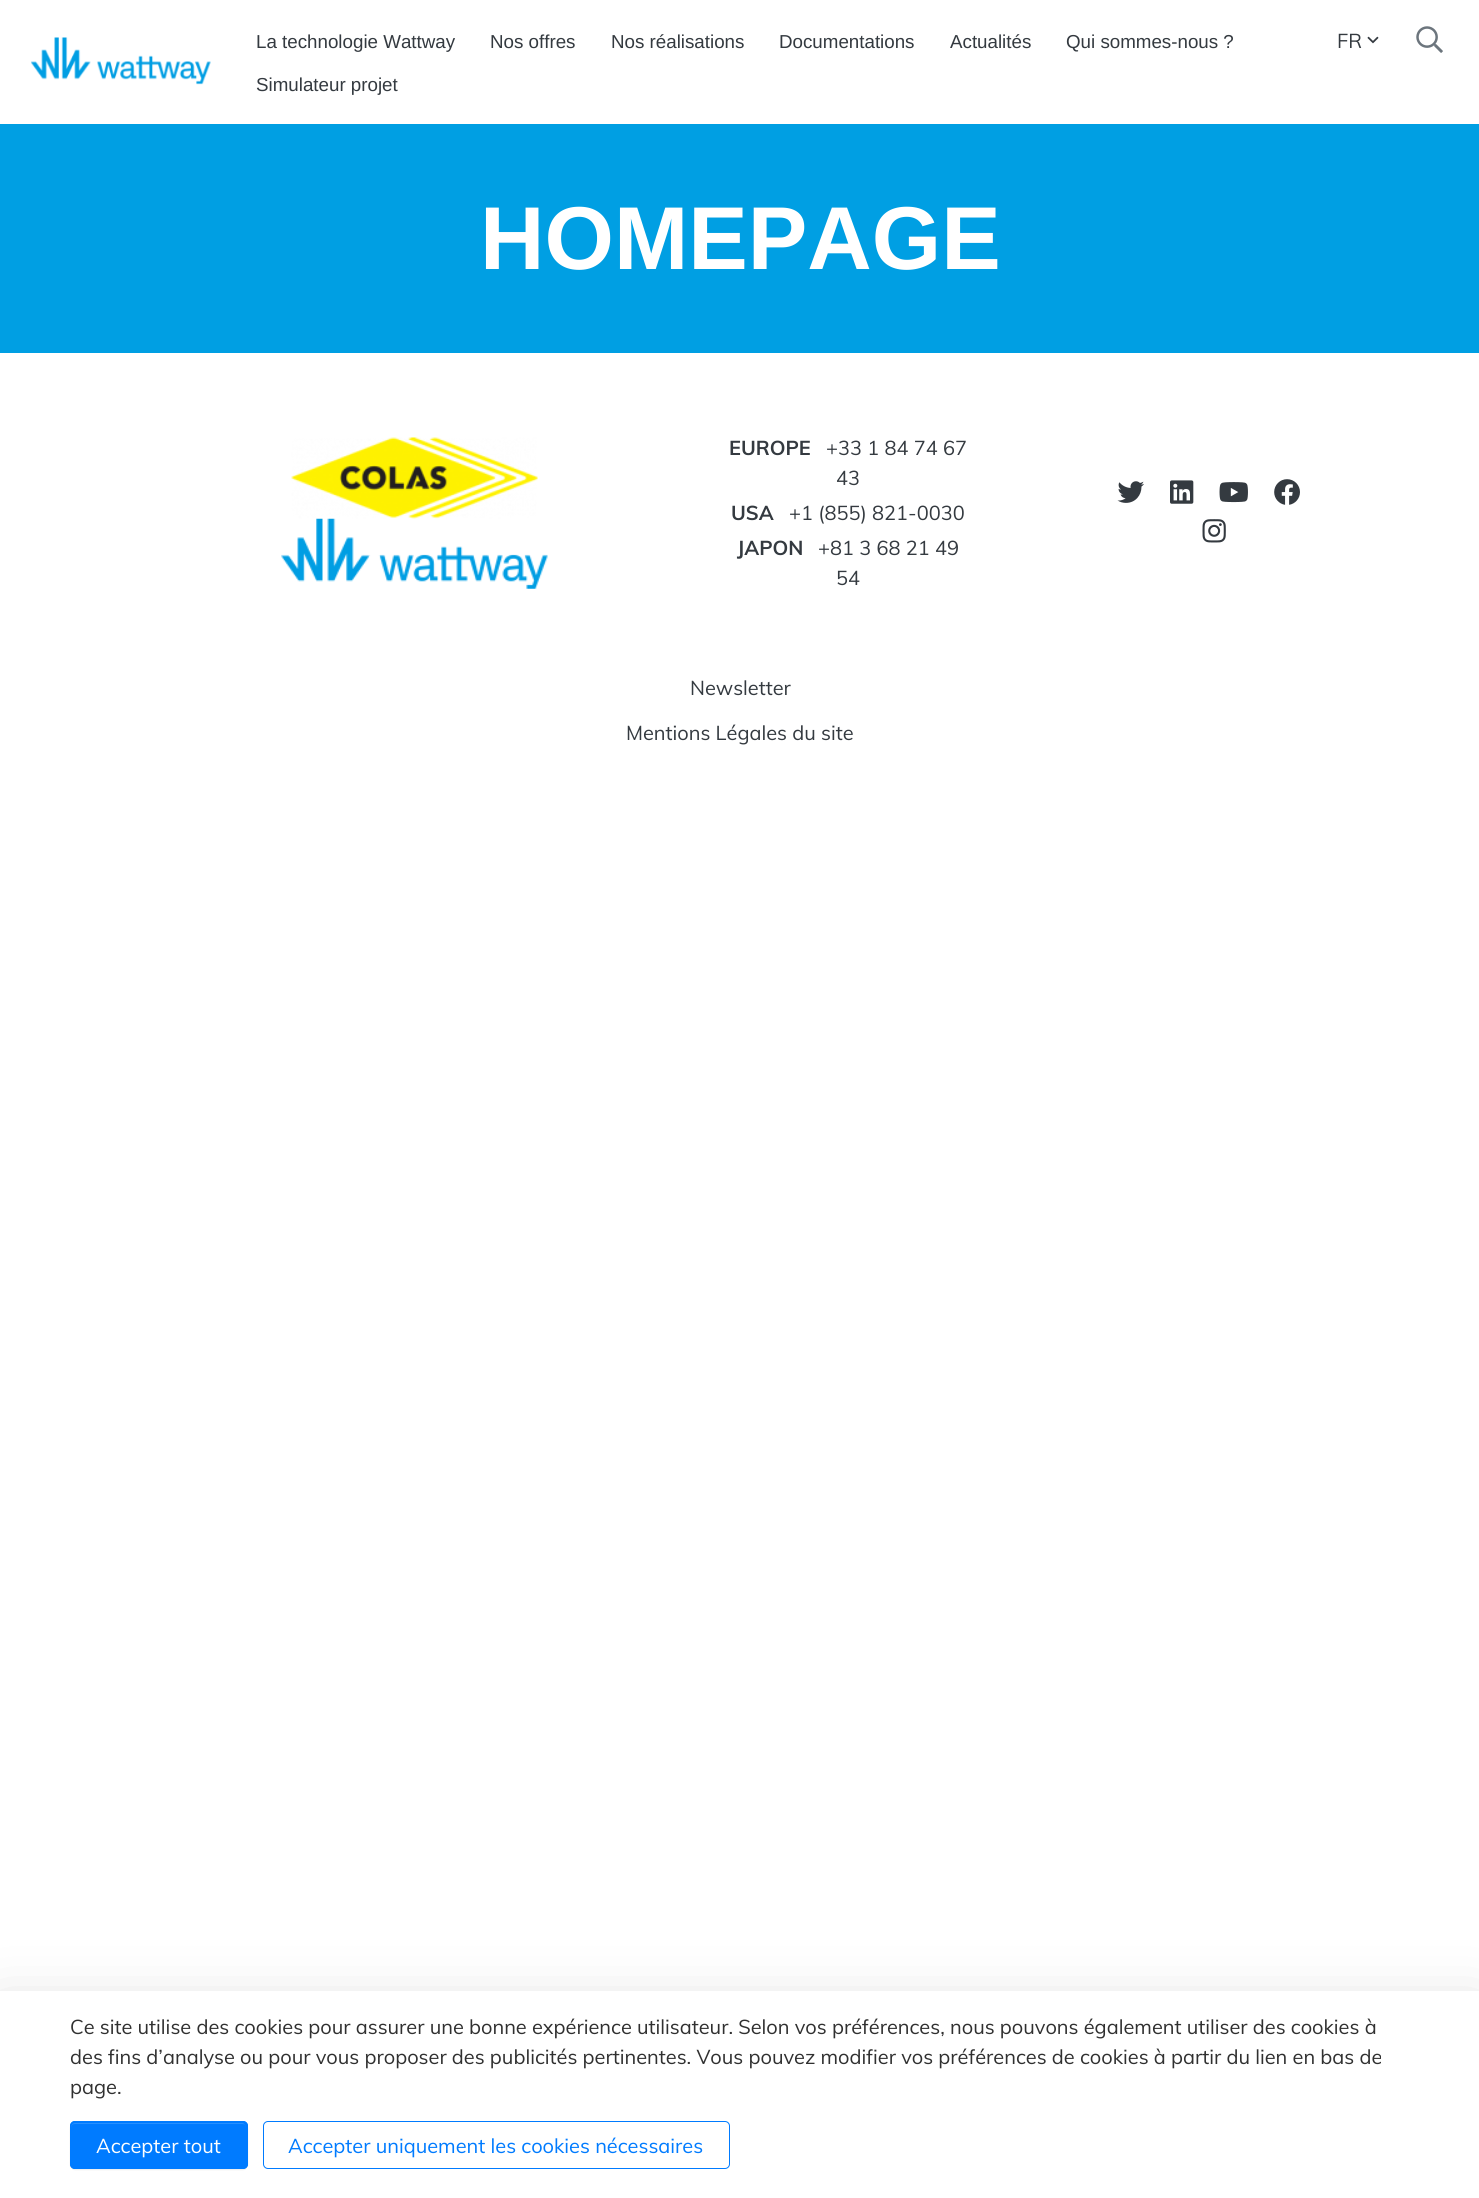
import math
import cairo

surface = cairo.ImageSurface(cairo.FORMAT_RGB24, 1479, 2198)
c = cairo.Context(surface)
options = cairo.FontOptions()
options.set_hint_metrics(cairo.HINT_METRICS_OFF)
options.set_hint_style(cairo.HINT_STYLE_NONE)
c.set_font_options(options)
c.set_miter_limit(4)
def C(code):
 c.set_source_rgb(*(v / 255 for v in bytes.fromhex(code[-6:])))
def F(family, size, italic, bold):
 c.select_font_face(family, cairo.FONT_SLANT_ITALIC if italic else cairo.FONT_SLANT_NORMAL, cairo.FONT_WEIGHT_BOLD if bold else cairo.FONT_WEIGHT_NORMAL)
 c.set_font_size(size)
def T(x, y, s):
 c.move_to(x, y)
 c.show_text(s)
def R(x, y, w, h):
 c.rectangle(x, y, w, h)
 c.fill()
def Q(x, y, w, h, r):
 c.new_sub_path()
 for i, (u, v) in enumerate([(x + w - r, y + h - r), (x + r, y + h - r), (x + r, y + r), (x + w - r, y + r)]):
  c.arc(u, v, r, i * math.pi / 2, (i + 1) * math.pi / 2)
 c.close_path()
def S(x, y, w, h, r, blur, alpha):
 c.push_group_with_content(cairo.CONTENT_ALPHA)
 c.set_operator(cairo.OPERATOR_SOURCE)
 for i in range(15, -16, -2):
  e = blur * i / 6
  if min(w, h) + 2 * e > 0:
   c.set_source_rgba(0, 0, 0, alpha * math.erfc((i - 1) / 8.5) / 2)
   Q(x - e, y - e, w + 2 * e, h + 2 * e, max(0, min(r + e + blur * .6, min(w, h) / 2 + e)))
   c.fill()
 c.mask(c.pop_group())
def I(path, x, y, w, h):
 c.save()
 c.set_source_surface(cairo.ImageSurface.create_from_png(path), x, y)
 c.rectangle(x, y, w, h)
 c.fill()
 c.restore()
C('ffffff')
c.paint()
I('1.png',31,37,180,48)
F('Arimo',18.75,0,0)
C('343a40')
T(256,48,'La technologie Wattway')
T(490,48,'Nos offres')
T(611,48,'Nos réalisations')
T(779,48,'Documentations')
T(950,48,'Actualités')
T(1066,48,'Qui sommes-nous ?')
T(256,91,'Simulateur projet')
F('Muli',20,0,0)
T(1337,48,'FR')
I('2.png',1367,36,12,8)
I('3.png',1416,26,27,27)
C('009fe3')
R(0,124,1479,229)
F('Arimo',89.25,0,1)
C('ffffff')
T(480,269,'HOMEPAGE')
I('4.png',291,437,247,82)
I('5.png',281,518,267,71)
F('Muli',20,0,1)
C('343a40')
T(729,455,'EUROPE')
F('Muli',20,0,0)
T(826,455,'+33 1 84 74 67')
T(836,485,'43')
F('Muli',20,0,1)
T(731,520,'USA')
F('Muli',20,0,0)
T(789,520,'+1 (855) 821-0030')
F('Muli',20,0,1)
T(737,555,'JAPON')
F('Muli',20,0,0)
T(818,555,'+81 3 68 21 49')
T(836,585,'54')
I('6.png',1117,481,27,22)
I('7.png',1170,480,24,24)
I('8.png',1219,482,29,21)
I('9.png',1274,479,26,26)
I('10.png',1202,519,24,24)
T(690,695,'Newsletter')
T(626,740,'Mentions Légales du site')
C('000000')
S(0,2011,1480,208,0,30,.18)
C('ffffff')
R(0,1991,1479,207)
C('303030')
T(70,2034,'Ce site utilise des cookies pour assurer une bonne expérience utilisateur. Selon vos préférences, nous pouvons également utiliser des cookies à')
T(70,2064,'des fins d’analyse ou pour vous proposer des publicités pertinentes. Vous pouvez modifier vos préférences de cookies à partir du lien en bas de')
T(70,2094,'page.')
C('000000')
S(70,2123,178,47,5,.5,.07)
C('007bff')
Q(70,2121,178,48,5)
c.fill()
C('268fff')
c.new_path()
c.move_to(75,2124)
c.line_to(242,2124)
c.curve_to(245,2124,246,2125,246,2128)
c.line_to(246,2127)
c.curve_to(246,2125,244,2123,242,2123)
c.line_to(75,2123)
c.curve_to(73,2123,71,2125,71,2127)
c.line_to(71,2128)
c.curve_to(71,2125,73,2124,75,2124)
c.close_path()
c.fill()
Q(70.5,2121.5,177,47,4.5)
C('007bff')
c.set_line_width(1)
c.stroke()
C('ffffff')
T(96,2153,'Accepter tout')
Q(263.5,2121.5,466,47,4.5)
C('007bff')
c.stroke()
T(288,2153,'Accepter uniquement les cookies nécessaires')
surface.write_to_png('o.png')
